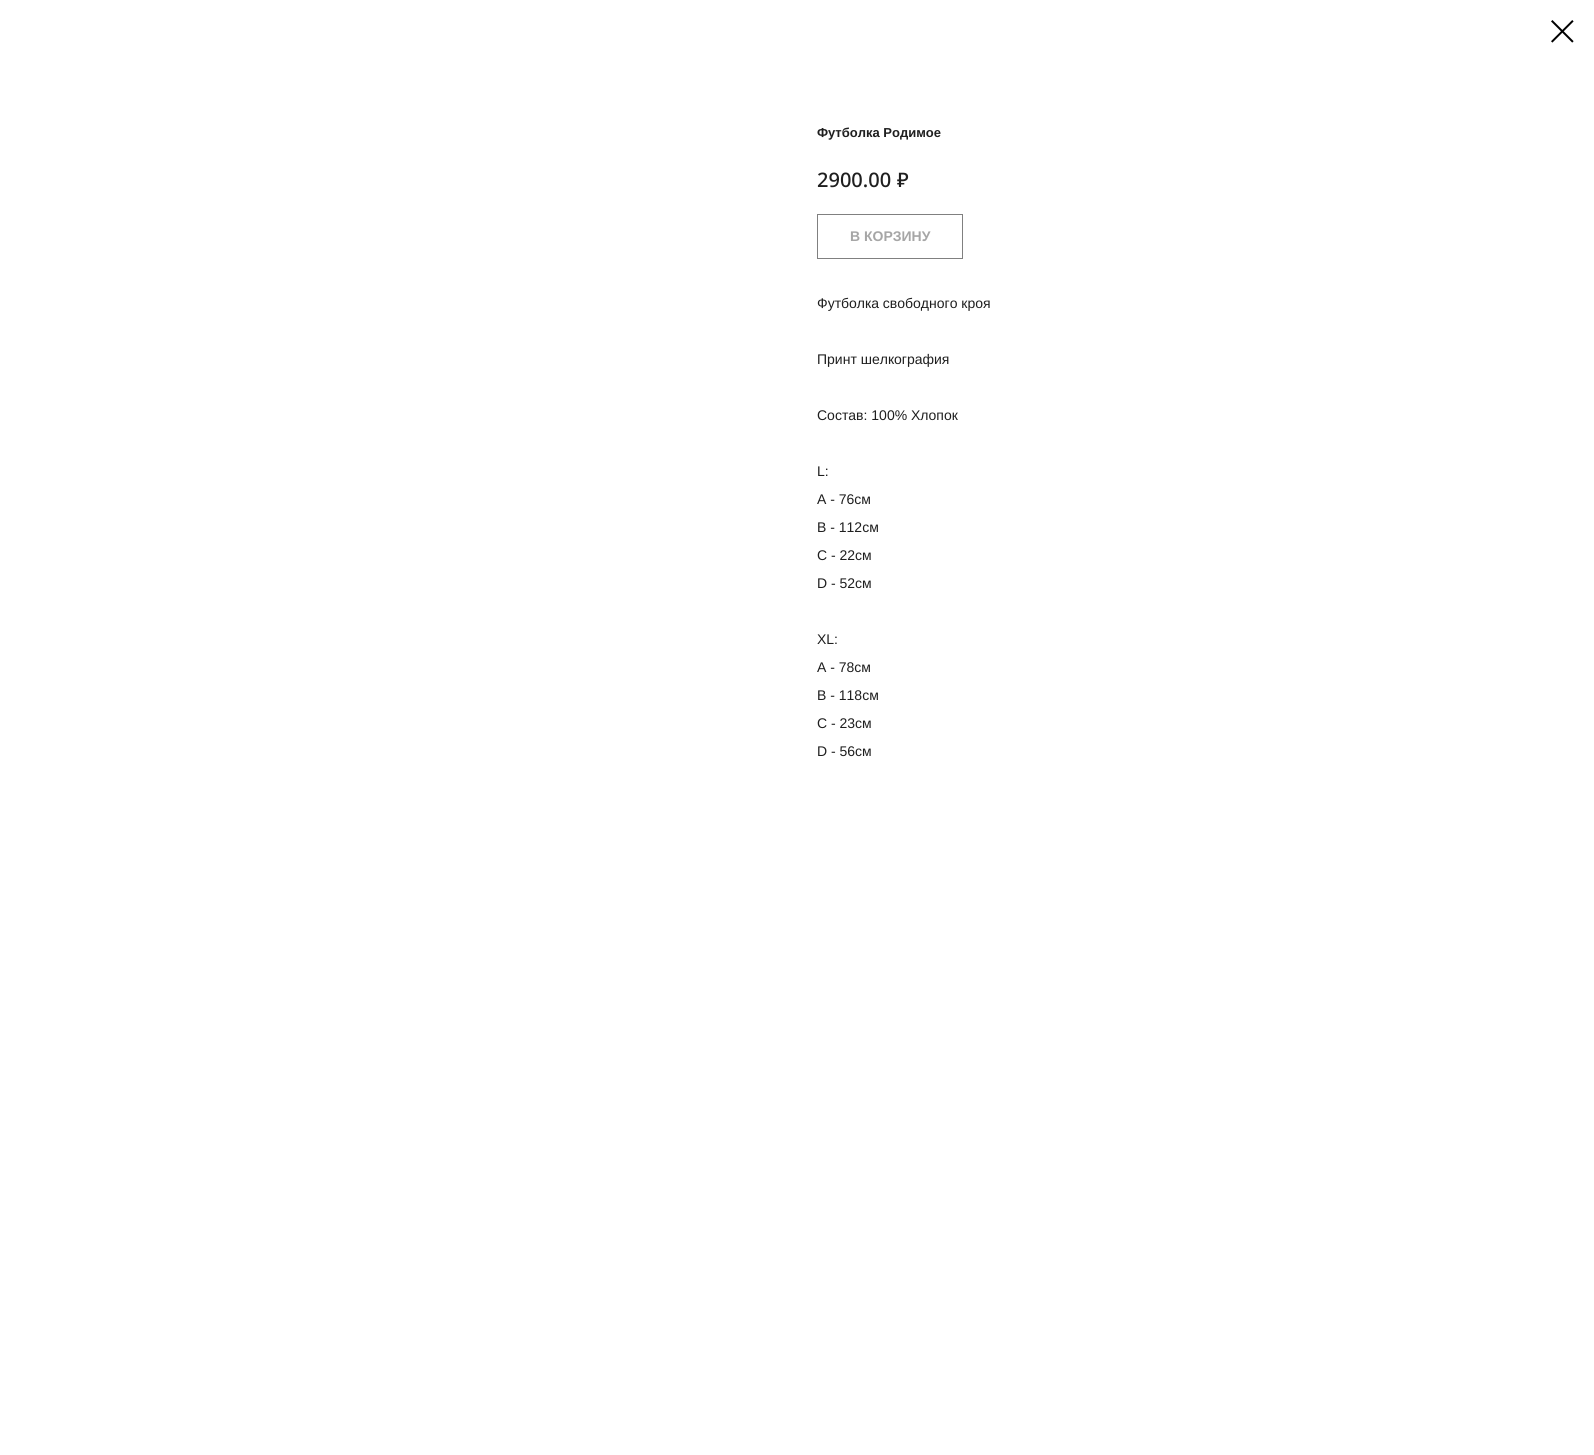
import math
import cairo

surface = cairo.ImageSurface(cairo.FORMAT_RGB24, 1594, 1455)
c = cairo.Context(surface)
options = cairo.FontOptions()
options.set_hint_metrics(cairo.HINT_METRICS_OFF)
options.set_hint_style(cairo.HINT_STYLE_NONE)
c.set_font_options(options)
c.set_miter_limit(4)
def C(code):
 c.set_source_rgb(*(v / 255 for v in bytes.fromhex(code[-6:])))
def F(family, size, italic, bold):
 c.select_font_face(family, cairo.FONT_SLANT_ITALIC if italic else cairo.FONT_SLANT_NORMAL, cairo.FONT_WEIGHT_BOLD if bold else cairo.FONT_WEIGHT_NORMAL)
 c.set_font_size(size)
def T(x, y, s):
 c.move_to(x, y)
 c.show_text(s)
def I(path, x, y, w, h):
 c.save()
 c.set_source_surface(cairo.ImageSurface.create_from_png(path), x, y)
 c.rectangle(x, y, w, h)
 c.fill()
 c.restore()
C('ffffff')
c.paint()
I('1.png',1551,20,23,23)
F('Liberation Sans',13,0,1)
C('1f1f1f')
T(817,137,'Футболка Родимое')
F('Noto Sans Medium',20,0,0)
T(817,187,'2900.00')
T(897,187,'₽')
c.rectangle(817.5,214.5,145,44)
C('808080')
c.set_line_width(1)
c.stroke()
F('Liberation Sans',14,0,1)
C('a6a6a6')
T(850,241,'В КОРЗИНУ')
F('Liberation Sans',14,0,0)
C('1f1f1f')
T(817,308,'Футболка свободного кроя')
T(817,364,'Принт шелкография')
T(817,420,'Состав: 100% Хлопок')
T(817,476,'L:')
T(817,504,'A - 76см')
T(817,532,'B - 112см')
T(817,560,'C - 22см')
T(817,588,'D - 52см')
T(817,644,'XL:')
T(817,672,'A - 78см')
T(817,700,'B - 118см')
T(817,728,'C - 23см')
T(817,756,'D - 56см')
surface.write_to_png('o.png')
